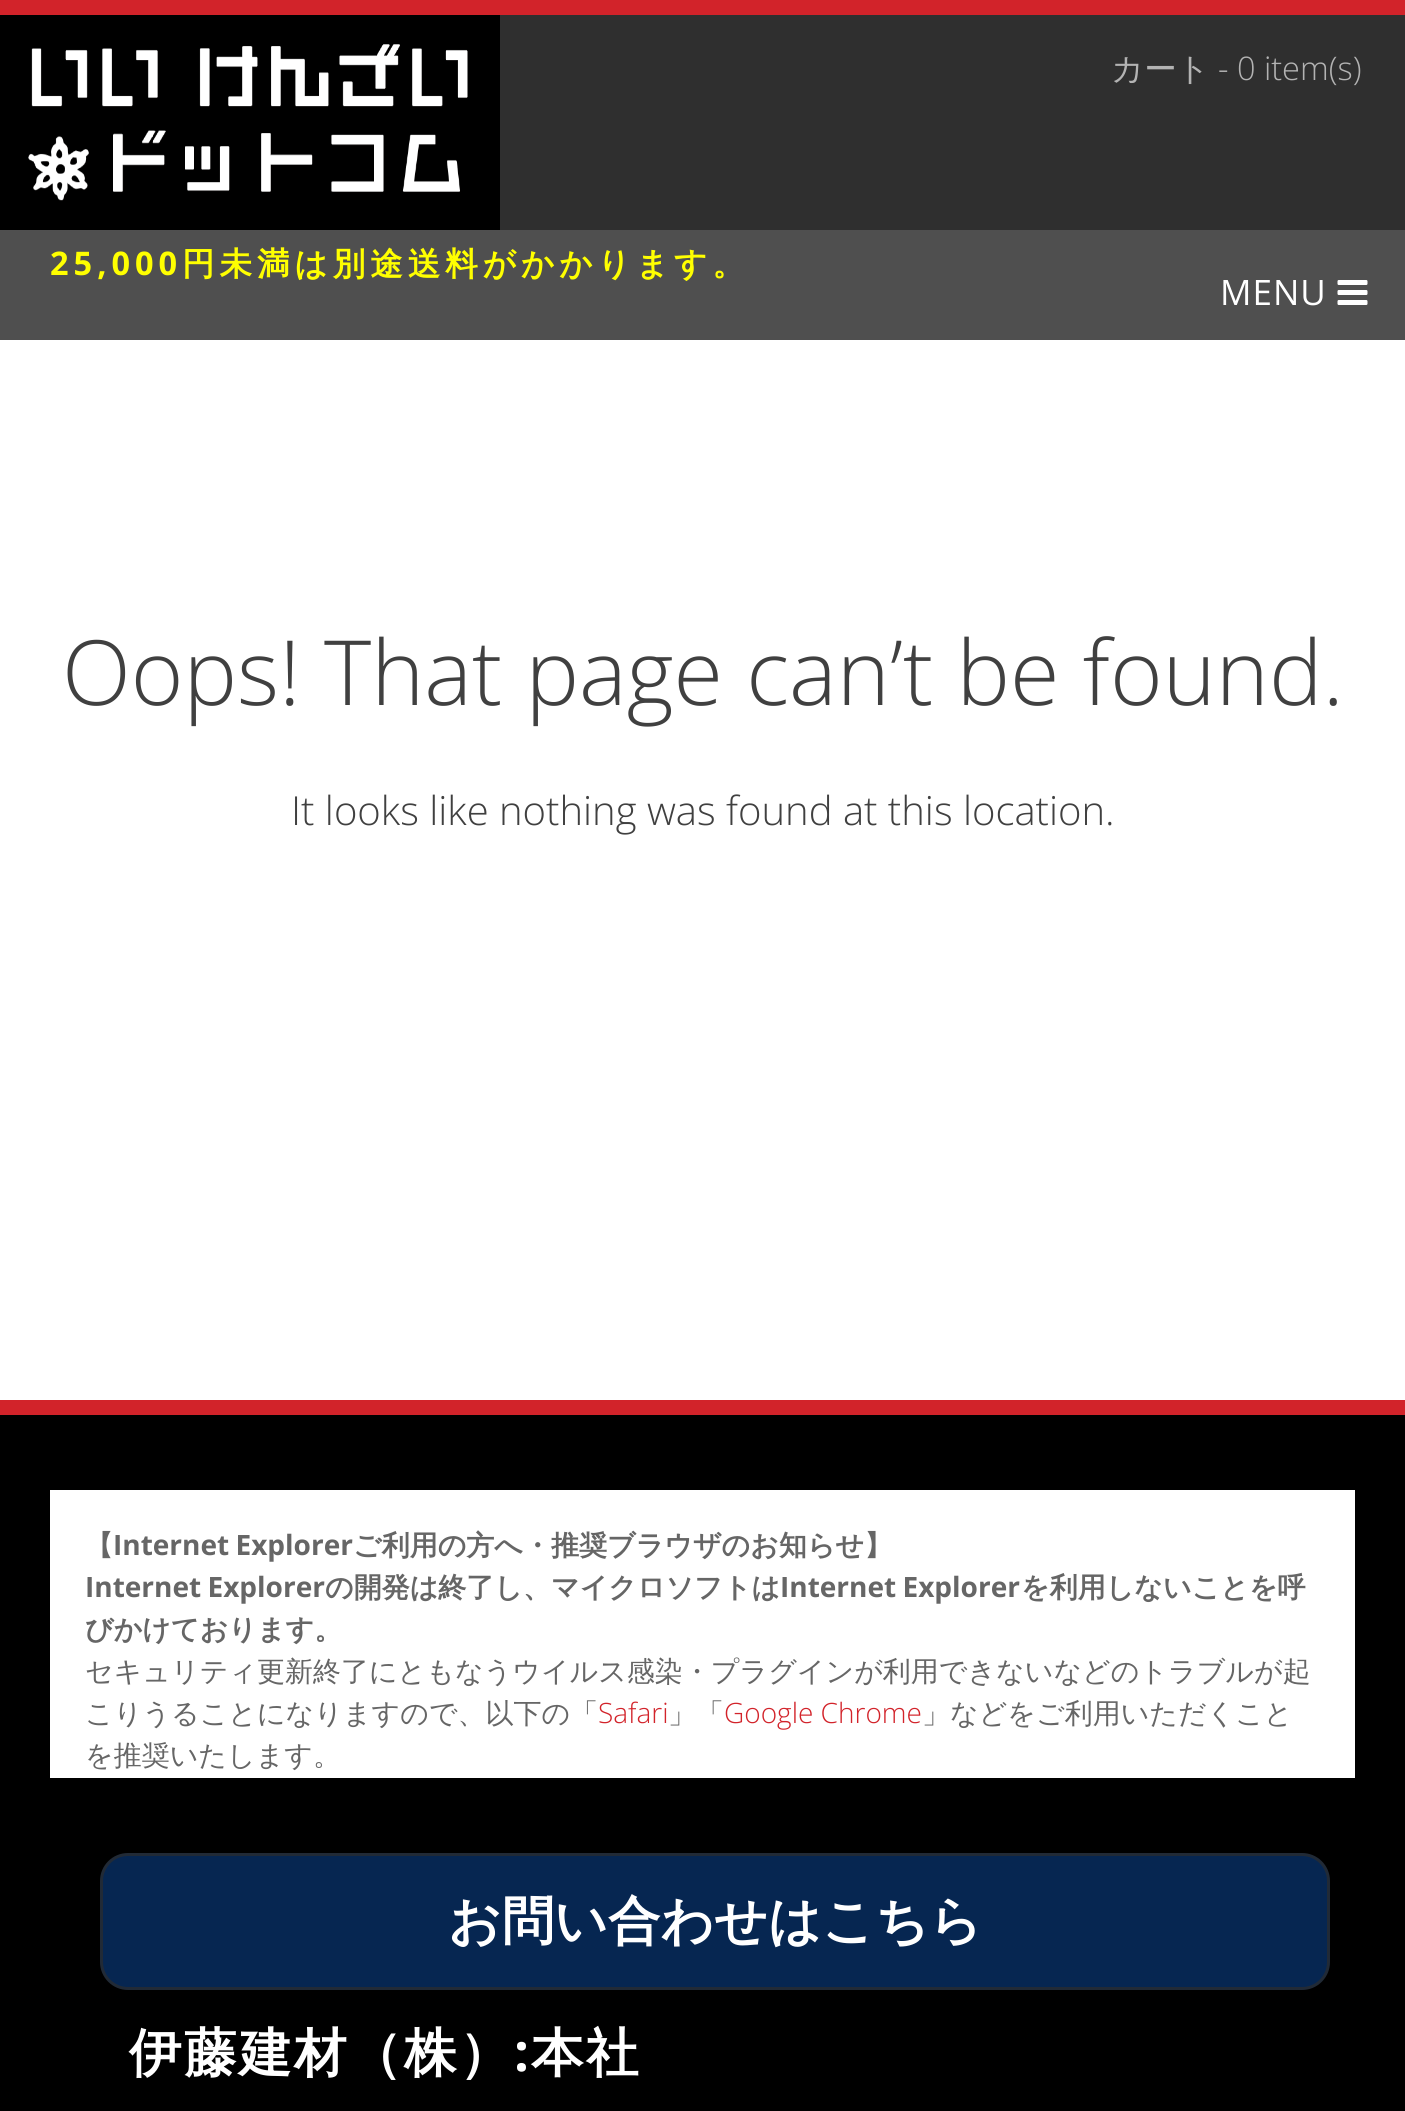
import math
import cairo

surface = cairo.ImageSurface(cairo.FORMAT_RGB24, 1405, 2111)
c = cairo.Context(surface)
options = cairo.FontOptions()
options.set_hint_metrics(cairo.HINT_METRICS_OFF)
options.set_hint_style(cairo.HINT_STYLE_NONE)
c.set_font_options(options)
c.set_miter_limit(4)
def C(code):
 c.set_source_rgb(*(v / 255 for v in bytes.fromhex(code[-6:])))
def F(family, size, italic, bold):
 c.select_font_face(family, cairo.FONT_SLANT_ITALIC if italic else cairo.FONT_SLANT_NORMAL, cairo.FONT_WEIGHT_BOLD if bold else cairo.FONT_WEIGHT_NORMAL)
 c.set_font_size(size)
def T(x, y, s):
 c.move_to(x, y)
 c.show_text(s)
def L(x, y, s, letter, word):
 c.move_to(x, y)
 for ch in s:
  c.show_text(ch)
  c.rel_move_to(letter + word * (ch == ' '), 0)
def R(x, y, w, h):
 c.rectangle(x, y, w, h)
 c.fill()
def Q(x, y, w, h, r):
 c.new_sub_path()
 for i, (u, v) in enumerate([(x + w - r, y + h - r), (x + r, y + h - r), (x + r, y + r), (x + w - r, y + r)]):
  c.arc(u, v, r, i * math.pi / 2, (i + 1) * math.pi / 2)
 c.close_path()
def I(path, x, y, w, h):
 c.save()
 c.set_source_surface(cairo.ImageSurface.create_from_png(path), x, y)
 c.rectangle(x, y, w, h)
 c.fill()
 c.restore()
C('ffffff')
c.paint()
C('4f4f4f')
R(0,230,1405,110)
C('2f2f2f')
R(500,15,905,215)
C('d2232a')
R(0,0,1405,15)
C('000000')
R(0,15,500,215)
I('1.png',28,44,440,157)
F('WenQuanYi Zen Hei Medium',32.5,0,0)
C('b3b3b3')
T(1111,80,'カート')
F('Open Sans Light',32.5,0,0)
T(1218,80,'- 0 item(s)')
F('Open Sans',32.5,0,1)
C('ffff00')
L(50,275,'25,000',5,0)
F('WenQuanYi Zen Hei',32.5,0,1)
L(182,275,'円未満は別途送料がかかります。',5,0)
F('Open Sans',35,0,0)
C('ffffff')
L(1220,305,'MENU',1,0)
I('2.png',1337,280,31,25)
F('Open Sans Light',90,0,0)
C('404040')
T(62,705,'Oops! That page can’t be found.')
F('Open Sans Light',40,0,0)
T(291,825,'It looks like nothing was found at this location.')
C('000000')
R(0,1415,1405,696)
C('d2232a')
R(0,1400,1405,15)
C('ffffff')
R(50,1490,1305,288)
F('WenQuanYi Zen Hei',28,0,1)
C('666666')
T(85,1555,'【')
F('Open Sans',28,0,1)
L(113,1555,'Internet Explorer',0,-1)
F('WenQuanYi Zen Hei',28,0,1)
T(353,1555,'ご利用の方へ・推奨ブラウザのお知らせ】')
F('Open Sans',28,0,1)
L(85,1597,'Internet Explorer',0,-1)
F('WenQuanYi Zen Hei',28,0,1)
T(325,1597,'の開発は終了し、マイクロソフトは')
F('Open Sans',28,0,1)
L(780,1597,'Internet Explorer',0,-1)
F('WenQuanYi Zen Hei',28,0,1)
T(1021,1597,'を利用しないことを呼')
T(85,1639,'びかけております。')
F('WenQuanYi Zen Hei Medium',28,0,0)
T(85,1681,'セキュリティ更新終了にともなうウイルス感染・プラグインが利用できないなどのトラブルが起')
T(85,1723,'こりうることになりますので、以下の「')
F('Open Sans Light',28,0,0)
C('d2232a')
T(598,1723,'Safari')
F('WenQuanYi Zen Hei Medium',28,0,0)
C('666666')
T(668,1723,'」「')
F('Open Sans Light',28,0,0)
C('d2232a')
T(724,1723,'Google Chrome')
F('WenQuanYi Zen Hei Medium',28,0,0)
C('666666')
T(922,1723,'」などをご利用いただくこと')
T(85,1765,'を推奨いたします。')
C('062651')
Q(101.5,1854.5,1227,134,26.5)
c.fill_preserve()
C('212a36')
c.set_line_width(3)
c.stroke()
F('WenQuanYi Zen Hei',52.5,0,1)
C('ffffff')
T(448,1939,'お問い合わせはこちら')
L(129,2071,'伊藤建材（株）',2.5,0)
F('Open Sans',52.5,0,1)
L(514,2071,':',2.5,0)
F('WenQuanYi Zen Hei',52.5,0,1)
L(531,2071,'本社',2.5,0)
surface.write_to_png('o.png')
